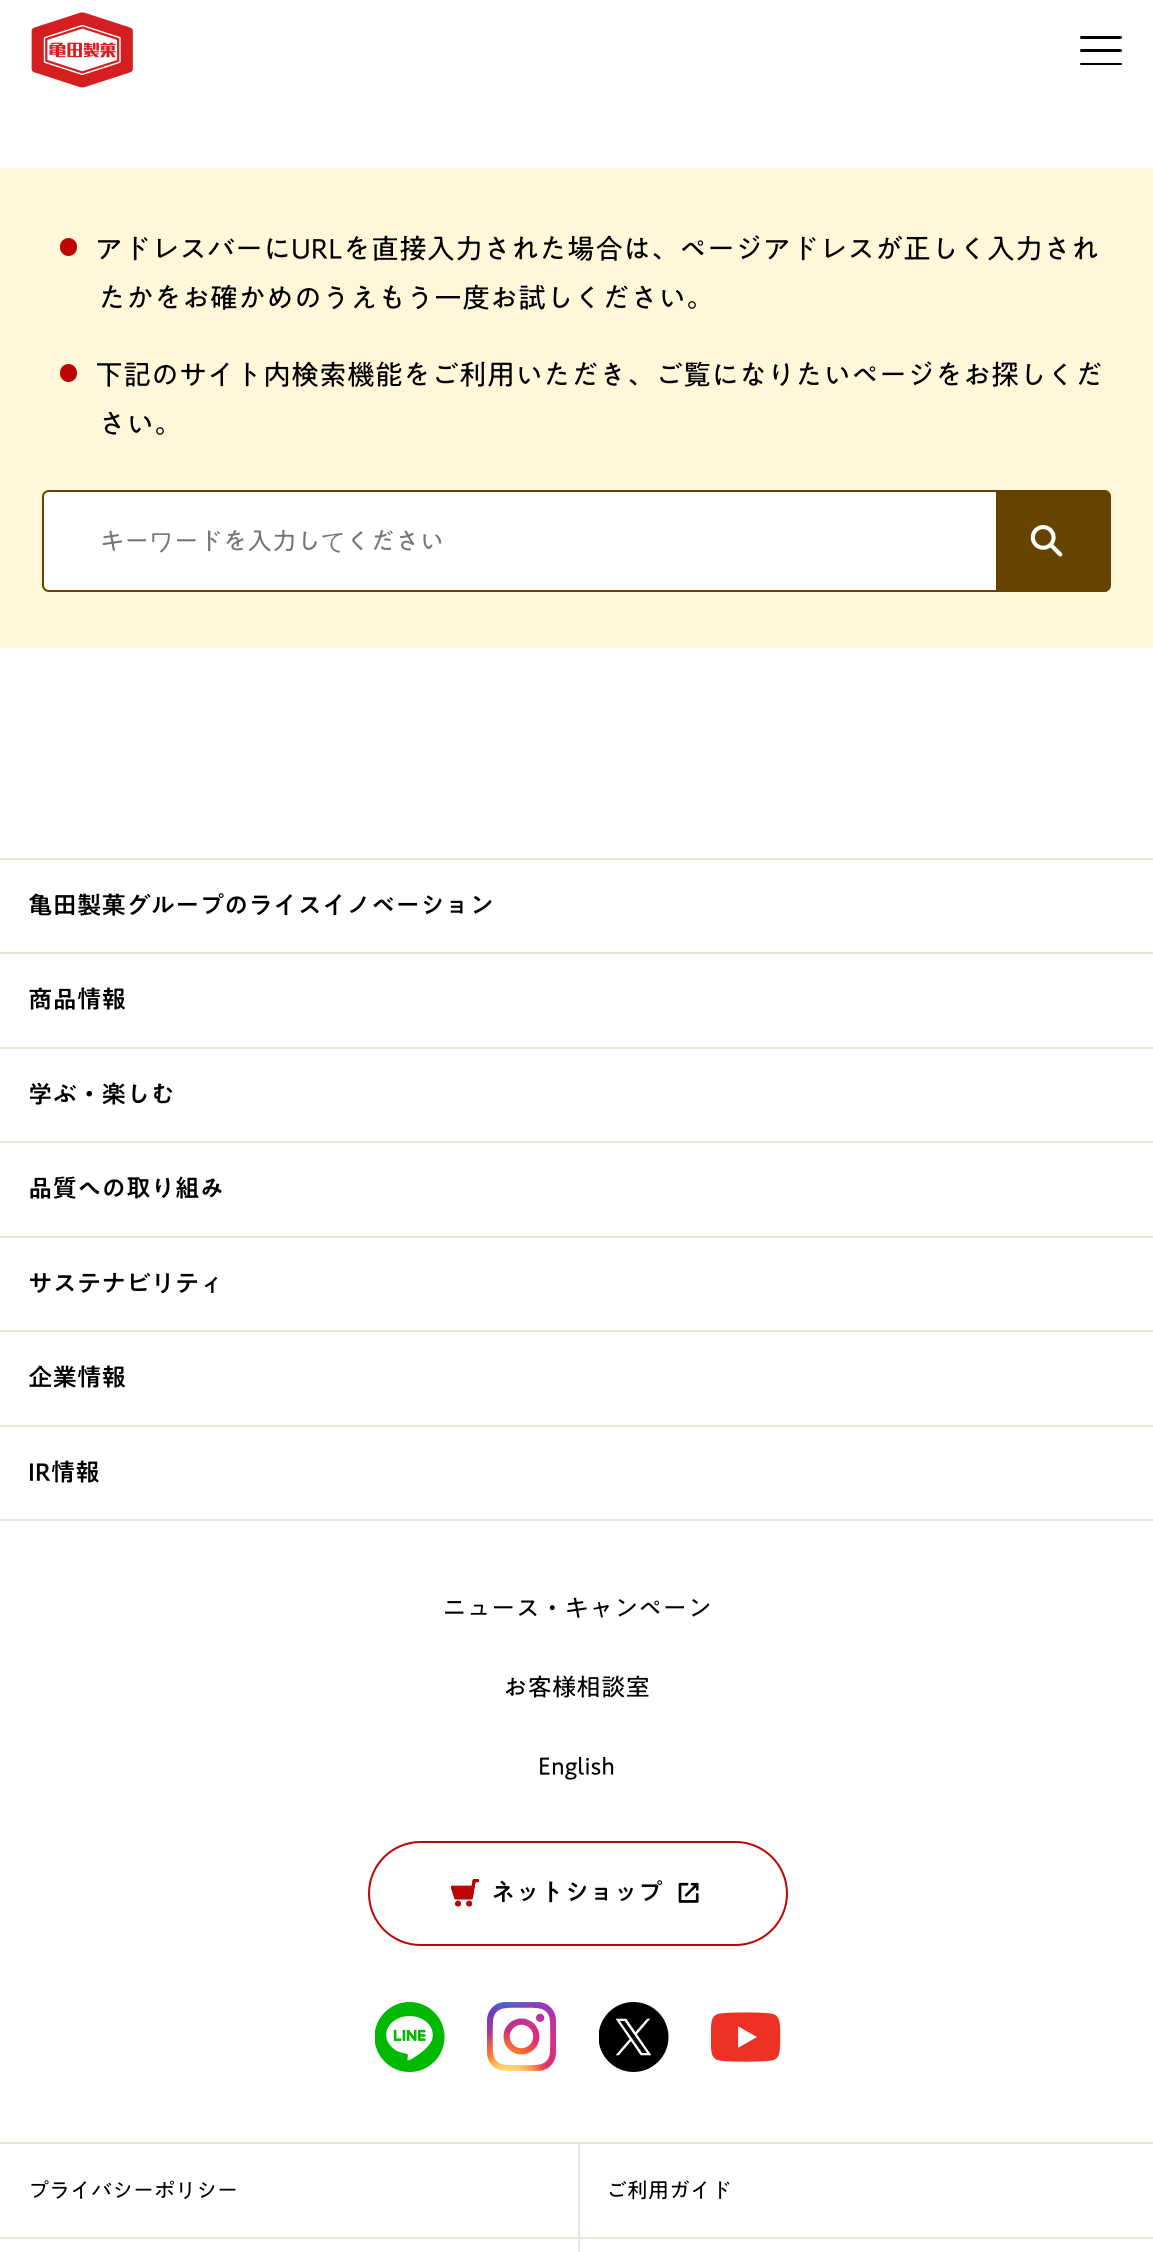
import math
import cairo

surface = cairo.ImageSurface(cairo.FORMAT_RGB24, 1153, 2252)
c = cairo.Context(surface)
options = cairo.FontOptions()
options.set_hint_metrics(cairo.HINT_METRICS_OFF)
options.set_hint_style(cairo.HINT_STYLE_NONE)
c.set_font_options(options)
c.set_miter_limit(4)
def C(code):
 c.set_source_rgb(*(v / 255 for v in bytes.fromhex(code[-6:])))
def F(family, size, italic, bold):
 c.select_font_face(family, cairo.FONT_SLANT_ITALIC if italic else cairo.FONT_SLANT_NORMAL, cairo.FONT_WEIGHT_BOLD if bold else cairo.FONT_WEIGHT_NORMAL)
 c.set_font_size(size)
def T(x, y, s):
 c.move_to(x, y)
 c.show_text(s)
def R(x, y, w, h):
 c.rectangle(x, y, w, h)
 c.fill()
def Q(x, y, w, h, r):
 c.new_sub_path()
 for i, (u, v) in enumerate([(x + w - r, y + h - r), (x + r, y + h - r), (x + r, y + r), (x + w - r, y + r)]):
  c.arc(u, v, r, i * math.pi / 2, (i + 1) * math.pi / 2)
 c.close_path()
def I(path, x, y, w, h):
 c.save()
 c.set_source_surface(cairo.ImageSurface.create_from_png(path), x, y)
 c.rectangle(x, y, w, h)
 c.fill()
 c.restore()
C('ffffff')
c.paint()
I('1.png',31,12,102,76)
C('000000')
Q(1080,36,42,3,1.5)
c.fill()
Q(1080,49,42,3,1.5)
c.fill()
Q(1080,63,42,2,1)
c.fill()
C('fff7da')
R(0,168,1153,480)
C('bd0505')
Q(60,238,17,18,8.5)
c.fill()
F('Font',28,0,0)
C('000000')
T(95,259,'アドレスバーにURLを直接入力された場合は、ページアドレスが正しく入力され')
T(98,308,'たかをお確かめのうえもう一度お試しください。')
C('bd0505')
Q(60,364,17,18,8.5)
c.fill()
C('000000')
T(95,385,'下記のサイト内検索機能をご利用いただき、ご覧になりたいページをお探しくだ')
T(98,434,'さい。')
C('ffffff')
c.new_path()
c.move_to(49,491)
c.line_to(997,491)
c.line_to(997,591)
c.line_to(49,591)
c.curve_to(45.5,591,43,588.5,43,585)
c.line_to(43,497)
c.curve_to(43,493.5,45.5,491,49,491)
c.close_path()
c.fill_preserve()
C('674300')
c.stroke()
F('Font',24.5,0,0)
C('757575')
T(100,550,'キー')
F('WenQuanYi Zen Hei Medium',24.5,0,0)
T(149,550,'ワ')
F('Font',24.5,0,0)
T(174,550,'ードを入力し')
F('WenQuanYi Zen Hei Medium',24.5,0,0)
T(321,550,'て')
F('Font',24.5,0,0)
T(346,550,'ください')
C('674300')
c.new_path()
c.move_to(998,490)
c.line_to(1104,490)
c.curve_to(1108,490,1111,493,1111,497)
c.line_to(1111,585)
c.curve_to(1111,589,1108,592,1104,592)
c.line_to(998,592)
c.close_path()
c.fill()
c.set_fill_rule(cairo.FILL_RULE_EVEN_ODD)
c.new_path()
c.move_to(998,490)
c.line_to(1104,490)
c.curve_to(1108,490,1111,493,1111,497)
c.line_to(1111,584)
c.curve_to(1111,588,1108,592,1104,592)
c.line_to(998,592)
c.close_path()
c.move_to(998,492)
c.line_to(1104,492)
c.curve_to(1107,492,1110,494,1110,497)
c.line_to(1110,584)
c.curve_to(1110,587,1107,590,1104,590)
c.line_to(998,590)
c.close_path()
c.fill()
I('2.png',1030,525,33,32)
C('eae4d9')
R(0,858,1153,2)
R(0,952,1153,2)
F('Font Medium',24.5,0,0)
C('000000')
T(28,914,'亀田製菓グループのライスイノベーション')
C('eae4d9')
R(0,1047,1153,2)
C('000000')
T(28,1008,'商品情報')
C('eae4d9')
R(0,1141,1153,2)
C('000000')
T(28,1103,'学ぶ・楽しむ')
T(28,1197,'品質への取り組み')
C('eae4d9')
R(0,1236,1153,2)
R(0,1330,1153,2)
C('000000')
T(28,1292,'サステナビリティ')
C('eae4d9')
R(0,1425,1153,2)
C('000000')
T(28,1386,'企業情報')
T(28,1481,'IR情報')
C('eae4d9')
R(0,1519,1153,2)
F('Font',24.5,0,0)
C('000000')
T(442,1617,'ニュース・キャンペーン')
T(503,1696,'お客様相談室')
T(538,1775,'English')
Q(369,1842,418,103,51.5)
C('bd0505')
c.stroke()
I('3.png',451,1879,29,28)
F('Font Medium',24.5,0,0)
C('000000')
T(491,1901,'ネットショップ')
I('4.png',678,1882,21,21)
I('5.png',375,2002,70,70)
I('6.png',487,2002,70,70)
I('7.png',599,2002,70,70)
I('8.png',711,2012,70,50)
C('eae4d9')
R(0,2142,1153,2)
R(0,2237,1153,2)
F('Font',21,0,0)
C('000000')
T(28,2198,'プライバシーポリシー')
C('eae4d9')
R(578,2144,2,108)
C('000000')
T(606,2198,'ご利用ガイド')
surface.write_to_png('o.png')
